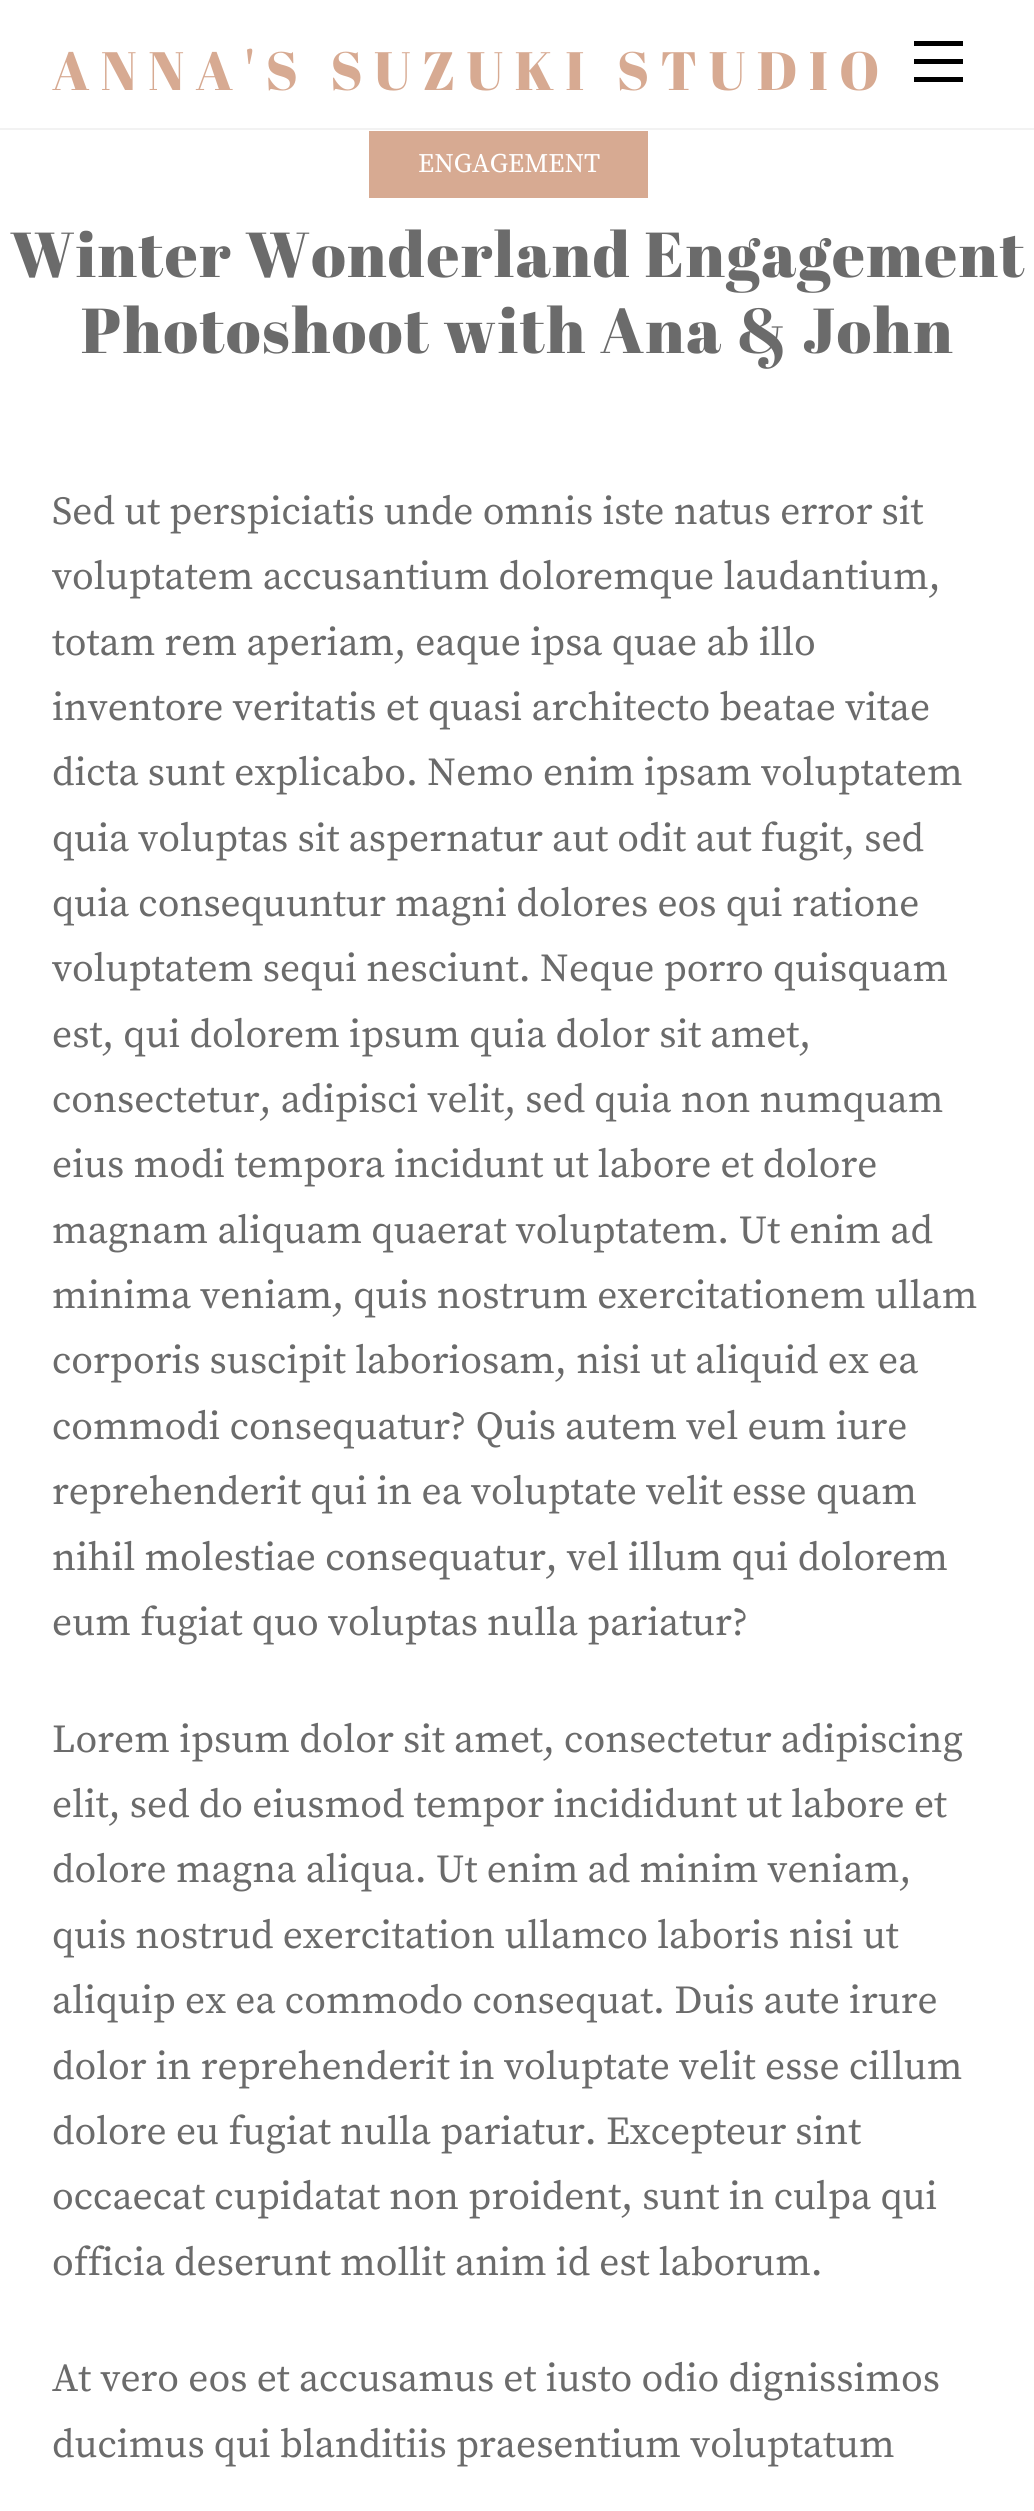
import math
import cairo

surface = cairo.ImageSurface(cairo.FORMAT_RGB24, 1034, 2511)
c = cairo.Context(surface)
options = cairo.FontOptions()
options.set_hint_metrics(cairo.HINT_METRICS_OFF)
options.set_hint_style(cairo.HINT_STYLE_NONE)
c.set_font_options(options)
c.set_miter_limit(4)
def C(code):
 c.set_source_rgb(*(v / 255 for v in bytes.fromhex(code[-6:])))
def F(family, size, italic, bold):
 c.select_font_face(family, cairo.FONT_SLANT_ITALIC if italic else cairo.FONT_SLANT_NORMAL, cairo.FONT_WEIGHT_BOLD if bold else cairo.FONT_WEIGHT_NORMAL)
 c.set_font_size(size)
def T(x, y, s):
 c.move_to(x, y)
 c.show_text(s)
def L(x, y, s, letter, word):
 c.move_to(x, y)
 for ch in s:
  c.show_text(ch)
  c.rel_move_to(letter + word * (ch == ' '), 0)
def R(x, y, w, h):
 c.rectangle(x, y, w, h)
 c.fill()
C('ffffff')
c.paint()
C('f2f2f2')
R(0,128,1034,2)
F('Abril Fatface',54,0,0)
C('d7aa92')
L(52,90,'ANNA\'S SUZUKI STUDIO',11.25,0)
C('000000')
R(914,77,49,5)
R(914,41,49,5)
R(914,59,49,5)
C('d7aa92')
R(369,131,279,67)
F('Source Serif Pro',26.75,0,0)
C('ffffff')
T(418,172,'ENGAGEMENT')
F('Abril Fatface',63.4,0,0)
C('6b6b6b')
L(10,277,'Winter Wonderland Engagement',1.6,0)
L(81,353,'Photoshoot with Ana & John',1.6,0)
F('Source Serif Pro',39.6,0,0)
T(52,524,'Sed ut perspiciatis unde omnis iste natus error sit')
T(52,589,'voluptatem accusantium doloremque laudantium,')
T(52,655,'totam rem aperiam, eaque ipsa quae ab illo')
T(52,720,'inventore veritatis et quasi architecto beatae vitae')
T(52,785,'dicta sunt explicabo. Nemo enim ipsam voluptatem')
T(52,851,'quia voluptas sit aspernatur aut odit aut fugit, sed')
T(52,916,'quia consequuntur magni dolores eos qui ratione')
T(52,981,'voluptatem sequi nesciunt. Neque porro quisquam')
T(52,1047,'est, qui dolorem ipsum quia dolor sit amet,')
T(52,1112,'consectetur, adipisci velit, sed quia non numquam')
T(52,1177,'eius modi tempora incidunt ut labore et dolore')
T(52,1243,'magnam aliquam quaerat voluptatem. Ut enim ad')
T(52,1308,'minima veniam, quis nostrum exercitationem ullam')
T(52,1373,'corporis suscipit laboriosam, nisi ut aliquid ex ea')
T(52,1439,'commodi consequatur? Quis autem vel eum iure')
T(52,1504,'reprehenderit qui in ea voluptate velit esse quam')
T(52,1570,'nihil molestiae consequatur, vel illum qui dolorem')
T(52,1635,'eum fugiat quo voluptas nulla pariatur?')
T(52,1752,'Lorem ipsum dolor sit amet, consectetur adipiscing')
T(52,1817,'elit, sed do eiusmod tempor incididunt ut labore et')
T(52,1882,'dolore magna aliqua. Ut enim ad minim veniam,')
T(52,1948,'quis nostrud exercitation ullamco laboris nisi ut')
T(52,2013,'aliquip ex ea commodo consequat. Duis aute irure')
T(52,2079,'dolor in reprehenderit in voluptate velit esse cillum')
T(52,2144,'dolore eu fugiat nulla pariatur. Excepteur sint')
T(52,2209,'occaecat cupidatat non proident, sunt in culpa qui')
T(52,2275,'officia deserunt mollit anim id est laborum.')
T(52,2391,'At vero eos et accusamus et iusto odio dignissimos')
T(52,2457,'ducimus qui blanditiis praesentium voluptatum')
surface.write_to_png('o.png')
